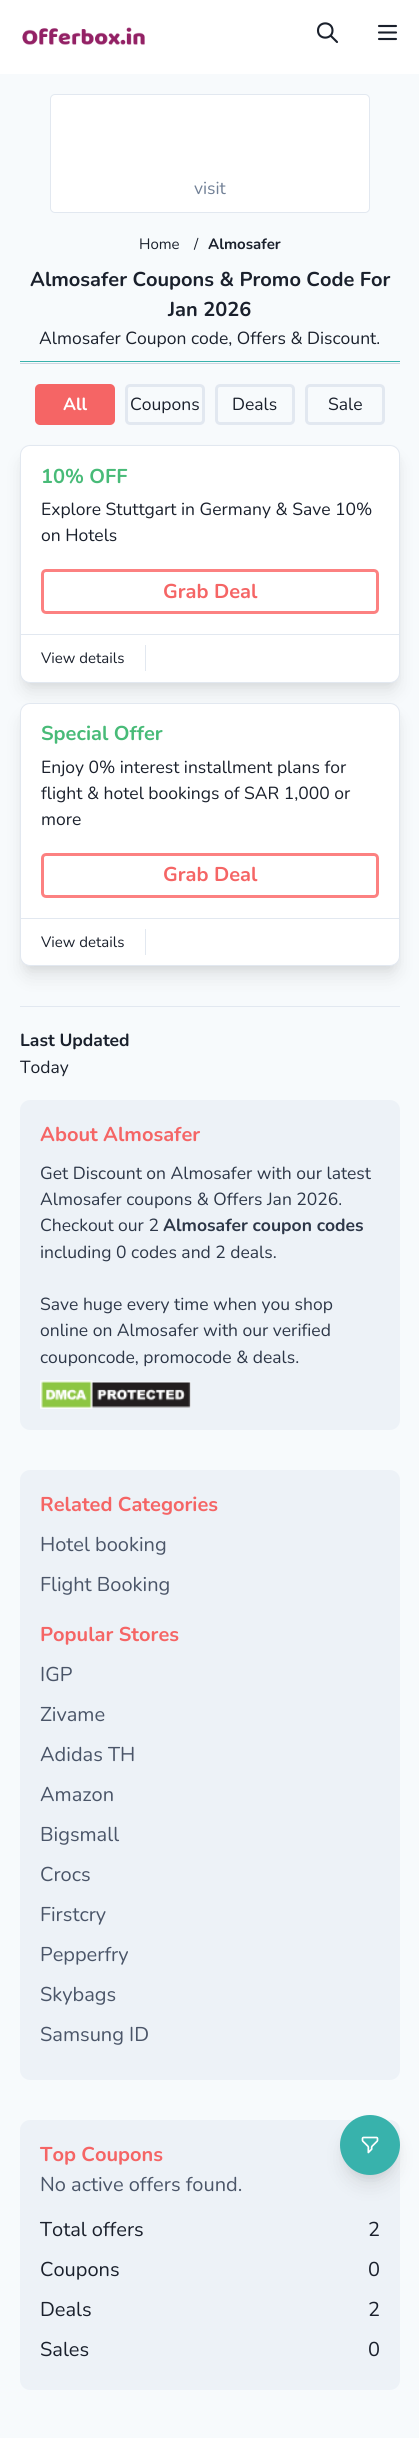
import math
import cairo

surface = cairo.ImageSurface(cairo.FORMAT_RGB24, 419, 2438)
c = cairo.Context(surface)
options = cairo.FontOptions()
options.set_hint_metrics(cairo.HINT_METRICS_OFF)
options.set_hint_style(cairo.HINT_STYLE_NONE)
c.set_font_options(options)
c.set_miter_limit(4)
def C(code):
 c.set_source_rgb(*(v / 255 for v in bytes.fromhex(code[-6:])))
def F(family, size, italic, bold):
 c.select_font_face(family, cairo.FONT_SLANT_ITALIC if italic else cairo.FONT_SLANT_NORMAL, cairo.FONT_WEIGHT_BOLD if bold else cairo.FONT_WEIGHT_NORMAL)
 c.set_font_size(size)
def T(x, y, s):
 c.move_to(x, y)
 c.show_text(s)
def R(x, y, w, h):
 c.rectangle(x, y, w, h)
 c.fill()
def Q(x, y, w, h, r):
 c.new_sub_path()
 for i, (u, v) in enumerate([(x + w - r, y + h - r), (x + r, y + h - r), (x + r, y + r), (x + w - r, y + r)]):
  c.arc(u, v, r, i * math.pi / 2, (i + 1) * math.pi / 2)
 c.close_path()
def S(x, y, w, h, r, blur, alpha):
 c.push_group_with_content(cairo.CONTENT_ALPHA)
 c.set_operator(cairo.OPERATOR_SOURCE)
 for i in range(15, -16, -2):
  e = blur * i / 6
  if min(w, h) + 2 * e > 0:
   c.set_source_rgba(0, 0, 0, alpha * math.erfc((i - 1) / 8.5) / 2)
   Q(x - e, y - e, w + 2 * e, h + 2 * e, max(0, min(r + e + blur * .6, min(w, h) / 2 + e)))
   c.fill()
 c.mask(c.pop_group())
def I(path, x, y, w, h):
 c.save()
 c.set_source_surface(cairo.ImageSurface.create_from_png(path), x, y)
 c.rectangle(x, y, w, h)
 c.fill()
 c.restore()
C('ffffff')
c.paint()
I('1.png',22,27,123,18)
c.new_path()
c.move_to(337,42)
c.line_to(330.5,35.5)
c.move_to(332.5,30.5)
c.curve_to(332.5,40,318,40,318,30.5)
c.curve_to(318,21,332.5,21,332.5,30.5)
c.close_path()
C('1a202c')
c.set_line_width(2.1)
c.set_line_cap(cairo.LINE_CAP_ROUND)
c.set_line_join(cairo.LINE_JOIN_ROUND)
c.stroke()
c.new_path()
c.move_to(379,26)
c.line_to(396,26)
c.move_to(379,32.5)
c.line_to(396,32.5)
c.move_to(379,39)
c.line_to(396,39)
c.stroke()
C('f7fafc')
R(0,74,419,2364)
C('ffffff')
Q(50.5,94.5,319,118,4.5)
c.fill_preserve()
C('e2e8f0')
c.set_line_width(1)
c.set_line_cap(cairo.LINE_CAP_BUTT)
c.set_line_join(cairo.LINE_JOIN_MITER)
c.stroke()
F('Nunito',17.5,0,0)
C('718096')
T(194,194,'visit')
C('cbd5e0')
R(20,363,380,1)
C('38b2ac')
R(20,361,380,1)
F('Nunito',15,0,0)
C('1a202c')
T(139,249,'Home')
T(194,249,'/')
F('Nunito',15,0,1)
T(208,249,'Almosafer')
F('Nunito',20,0,1)
T(30,286,'Almosafer Coupons & Promo Code For')
T(168,316,'Jan 2026')
F('Nunito',17.5,0,0)
T(39,344,'Almosafer Coupon code, Offers & Discount.')
C('f56565')
Q(35,384,80,41,5)
c.fill()
F('Nunito',17.5,0,1)
C('ffffff')
T(63,410,'All')
Q(126.5,385.5,77,38,3.5)
C('e2e8f0')
c.set_line_width(3)
c.stroke()
F('Nunito',17.5,0,0)
C('1a202c')
T(130,410,'Coupons')
Q(216.5,385.5,77,38,3.5)
C('e2e8f0')
c.stroke()
C('1a202c')
T(232,410,'Deals')
Q(306.5,385.5,77,38,3.5)
C('e2e8f0')
c.stroke()
C('1a202c')
T(328,410,'Sale')
C('000000')
S(23,453,375,232,8,4,.05)
S(24,461,372,230,6,9.5,.1)
C('ffffff')
Q(20.5,445.5,379,237,9.5)
c.fill_preserve()
C('e2e8f0')
c.set_line_width(1)
c.stroke()
F('Nunito',20,0,1)
C('48bb78')
T(41,483,'10% OFF')
F('Nunito',17.5,0,0)
C('1a202c')
T(41,515,'Explore Stuttgart in Germany & Save 10%')
T(41,541,'on Hotels')
Q(42.5,570.5,335,42,3.5)
C('fc8181')
c.set_line_width(3)
c.stroke()
F('Nunito',20,0,1)
C('f56565')
T(163,598,'Grab Deal')
C('e2e8f0')
R(21,634,378,1)
F('Nunito',15,0,0)
C('1a202c')
T(41,663,'View details')
C('e2e8f0')
R(145,645,1,26)
C('000000')
S(23,710,375,259,8,4,.05)
S(24,719,372,256,6,9.5,.1)
C('ffffff')
Q(20.5,703.5,379,262,9.5)
c.fill_preserve()
C('e2e8f0')
c.set_line_width(1)
c.stroke()
F('Nunito',20,0,1)
C('48bb78')
T(41,740,'Special Offer')
F('Nunito',17.5,0,0)
C('1a202c')
T(41,773,'Enjoy 0% interest installment plans for')
T(41,799,'flight & hotel bookings of SAR 1,000 or')
T(41,825,'more')
Q(42.5,854.5,335,42,3.5)
C('fc8181')
c.set_line_width(3)
c.stroke()
F('Nunito',20,0,1)
C('f56565')
T(163,881,'Grab Deal')
C('e2e8f0')
R(21,918,378,1)
F('Nunito',15,0,0)
C('1a202c')
T(41,947,'View details')
C('e2e8f0')
R(145,929,1,26)
R(20,1006,380,1)
F('Nunito',17.5,0,1)
C('1a202c')
T(20,1046,'Last Updated')
F('Nunito',17.5,0,0)
T(20,1073,'Today')
C('edf2f7')
Q(20,1100,380,330,10)
c.fill()
F('Nunito',20,0,1)
C('f56565')
T(40,1141,'About Almosafer')
F('Nunito',17.5,0,0)
C('2d3748')
T(40,1179,'Get Discount on Almosafer with our latest')
T(40,1205,'Almosafer coupons & Offers Jan 2026.')
T(40,1231,'Checkout our 2')
F('Nunito',17.5,0,1)
T(163,1231,'Almosafer coupon codes')
F('Nunito',17.5,0,0)
T(40,1258,'including 0 codes and 2 deals.')
T(40,1310,'Save huge every time when you shop')
T(40,1336,'online on Almosafer with our verified')
T(40,1363,'couponcode, promocode & deals.')
I('2.png',40,1380,151,29)
C('edf2f7')
Q(20,1470,380,610,10)
c.fill()
F('Nunito',20,0,1)
C('f56565')
T(40,1511,'Related Categories')
F('Nunito',20,0,0)
C('4a5568')
T(40,1551,'Hotel booking')
T(40,1591,'Flight Booking')
F('Nunito',20,0,1)
C('f56565')
T(40,1641,'Popular Stores')
F('Nunito',20,0,0)
C('4a5568')
T(40,1681,'IGP')
T(40,1721,'Zivame')
T(40,1761,'Adidas TH')
T(40,1801,'Amazon')
T(40,1841,'Bigsmall')
T(40,1881,'Crocs')
T(40,1921,'Firstcry')
T(40,1961,'Pepperfry')
T(40,2001,'Skybags')
T(40,2041,'Samsung ID')
C('edf2f7')
Q(20,2120,380,270,10)
c.fill()
F('Nunito',20,0,1)
C('f56565')
T(40,2161,'Top Coupons')
F('Nunito',20,0,0)
C('4a5568')
T(40,2191,'No active offers found.')
C('1a202c')
T(40,2236,'Total offers')
T(368,2236,'2')
T(40,2276,'Coupons')
T(368,2276,'0')
T(40,2316,'Deals')
T(368,2316,'2')
T(40,2356,'Sales')
T(368,2356,'0')
C('000000')
S(343,2123,55,55,27.5,4,.05)
S(344,2131,52,53,26,9.5,.1)
C('38b2ac')
c.arc(370,2145,30,0,2 * math.pi)
c.fill()
I('3.png',361,2136,18,18)
surface.write_to_png('o.png')
